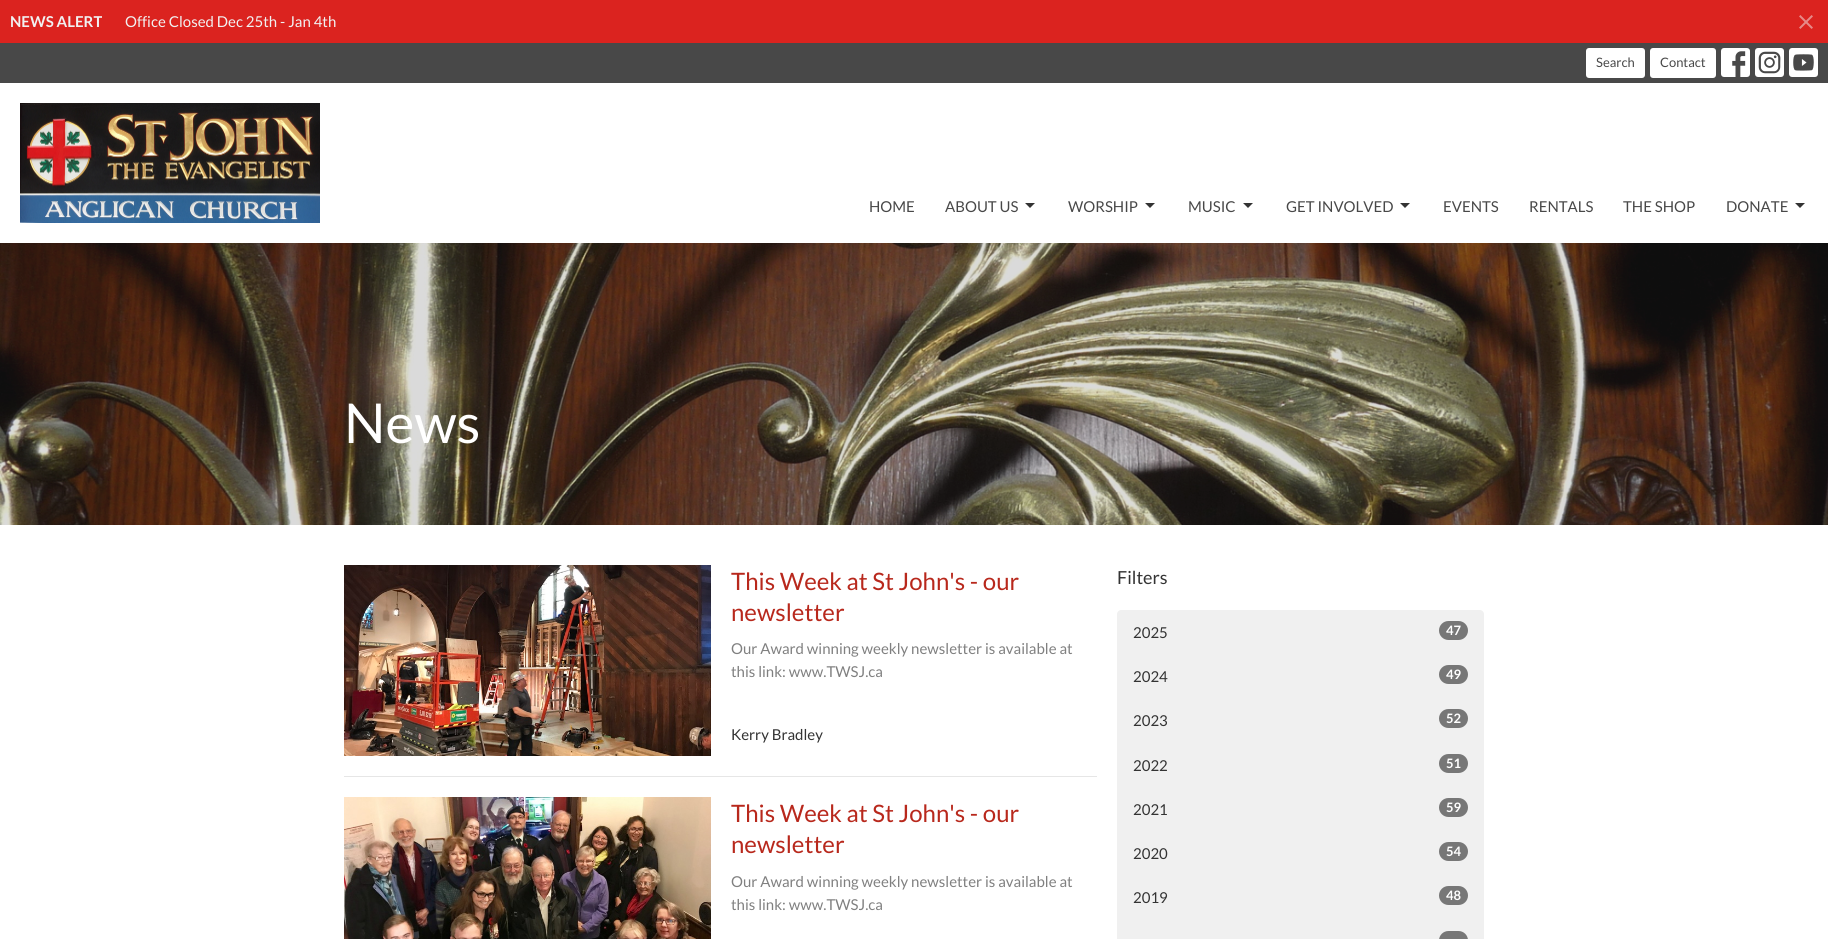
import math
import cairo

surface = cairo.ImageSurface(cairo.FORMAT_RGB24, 1828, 939)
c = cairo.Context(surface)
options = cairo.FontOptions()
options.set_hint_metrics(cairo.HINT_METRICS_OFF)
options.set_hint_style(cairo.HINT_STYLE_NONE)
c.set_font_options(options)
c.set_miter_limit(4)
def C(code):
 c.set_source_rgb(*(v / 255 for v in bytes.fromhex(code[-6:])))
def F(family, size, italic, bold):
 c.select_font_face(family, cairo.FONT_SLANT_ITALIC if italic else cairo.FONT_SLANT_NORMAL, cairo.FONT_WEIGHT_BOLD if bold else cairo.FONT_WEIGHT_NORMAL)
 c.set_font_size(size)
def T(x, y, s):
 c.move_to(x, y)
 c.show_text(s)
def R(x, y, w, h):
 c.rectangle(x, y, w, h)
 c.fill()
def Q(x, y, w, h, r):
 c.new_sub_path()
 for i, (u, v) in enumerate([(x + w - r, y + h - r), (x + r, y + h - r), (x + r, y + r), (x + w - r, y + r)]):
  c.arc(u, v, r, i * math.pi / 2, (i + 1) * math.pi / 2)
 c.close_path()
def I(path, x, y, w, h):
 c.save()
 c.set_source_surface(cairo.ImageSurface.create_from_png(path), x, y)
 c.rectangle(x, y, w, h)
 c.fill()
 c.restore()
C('ffffff')
c.paint()
C('db231f')
R(0,0,1828,43)
F('Lato',15,0,1)
C('f1f1f1')
T(10,27,'NEWS ALERT')
F('Lato',15,0,0)
T(125,27,'Office Closed Dec 25th - Jan 4th')
I('1.png',1799,15,14,14)
C('484848')
R(0,43,1828,40)
C('ffffff')
Q(1586,48,59,30,3)
c.fill()
F('Lato',13,0,0)
C('484848')
T(1596,67,'Search')
C('ffffff')
Q(1650,48,66,30,3)
c.fill()
C('484848')
T(1660,67,'Contact')
I('2.png',1721,48,29,29)
I('3.png',1755,48,29,29)
I('4.png',1789,48,29,29)
I('5.png',20,103,300,120)
F('Lato',15,0,0)
T(869,212,'HOME')
T(945,212,'ABOUT US')
C('333333')
c.new_path()
c.move_to(1025,203)
c.line_to(1030,208)
c.line_to(1035,203)
c.close_path()
c.fill()
C('484848')
T(1068,212,'WORSHIP')
C('333333')
c.new_path()
c.move_to(1145,203)
c.line_to(1150,208)
c.line_to(1155,203)
c.close_path()
c.fill()
C('484848')
T(1188,212,'MUSIC')
C('333333')
c.new_path()
c.move_to(1243,203)
c.line_to(1248,208)
c.line_to(1253,203)
c.close_path()
c.fill()
C('484848')
T(1286,212,'GET INVOLVED')
C('333333')
c.new_path()
c.move_to(1400,203)
c.line_to(1405,208)
c.line_to(1410,203)
c.close_path()
c.fill()
C('484848')
T(1443,212,'EVENTS')
T(1529,212,'RENTALS')
T(1623,212,'THE SHOP')
T(1726,212,'DONATE')
C('333333')
c.new_path()
c.move_to(1795,203)
c.line_to(1800,208)
c.line_to(1805,203)
c.close_path()
c.fill()
I('6.png',0,243,1828,282)
F('Lato',55,0,0)
C('ffffff')
T(344,443,'News')
C('e6e6e6')
R(344,776,753,1)
I('7.png',344,565,367,191)
F('Lato',24,0,0)
C('b8281c')
T(731,590,'This Week at St John\'s - our')
T(731,621,'newsletter')
F('Lato',15,0,0)
C('808080')
T(731,654,'Our Award winning weekly newsletter is available at')
T(731,677,'this link: www.TWSJ.ca')
C('333333')
T(731,740,'Kerry Bradley')
I('8.png',344,797,367,142)
F('Lato',24,0,0)
C('b8281c')
T(731,822,'This Week at St John\'s - our')
T(731,853,'newsletter')
F('Lato',15,0,0)
C('808080')
T(731,887,'Our Award winning weekly newsletter is available at')
T(731,910,'this link: www.TWSJ.ca')
F('Lato',18,0,0)
C('333333')
T(1117,584,'Filters')
C('f0f0f0')
c.new_path()
c.move_to(1121,610)
c.line_to(1480,610)
c.curve_to(1482,610,1484,612,1484,614)
c.line_to(1484,655)
c.line_to(1117,655)
c.line_to(1117,614)
c.curve_to(1117,612,1119,610,1121,610)
c.close_path()
c.fill()
F('Lato',15,0,0)
C('333333')
T(1133,638,'2025')
C('777777')
Q(1439,621,29,19,9.5)
c.fill()
F('Lato',13,0,1)
C('ffffff')
T(1446,635,'47')
C('f0f0f0')
R(1117,655,367,284)
F('Lato',15,0,0)
C('333333')
T(1133,682,'2024')
C('777777')
Q(1439,665,29,19,9.5)
c.fill()
F('Lato',13,0,1)
C('ffffff')
T(1446,679,'49')
F('Lato',15,0,0)
C('333333')
T(1133,726,'2023')
C('777777')
Q(1439,709,29,19,9.5)
c.fill()
F('Lato',13,0,1)
C('ffffff')
T(1446,723,'52')
F('Lato',15,0,0)
C('333333')
T(1133,771,'2022')
C('777777')
Q(1439,754,29,19,9.5)
c.fill()
F('Lato',13,0,1)
C('ffffff')
T(1446,768,'51')
F('Lato',15,0,0)
C('333333')
T(1133,815,'2021')
C('777777')
Q(1439,798,29,19,9.5)
c.fill()
F('Lato',13,0,1)
C('ffffff')
T(1446,812,'59')
F('Lato',15,0,0)
C('333333')
T(1133,859,'2020')
C('777777')
Q(1439,842,29,19,9.5)
c.fill()
F('Lato',13,0,1)
C('ffffff')
T(1446,856,'54')
F('Lato',15,0,0)
C('333333')
T(1133,903,'2019')
C('777777')
Q(1439,886,29,19,9.5)
c.fill()
F('Lato',13,0,1)
C('ffffff')
T(1446,900,'48')
C('777777')
Q(1439,931,29,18,9.5)
c.fill()
surface.write_to_png('o.png')
